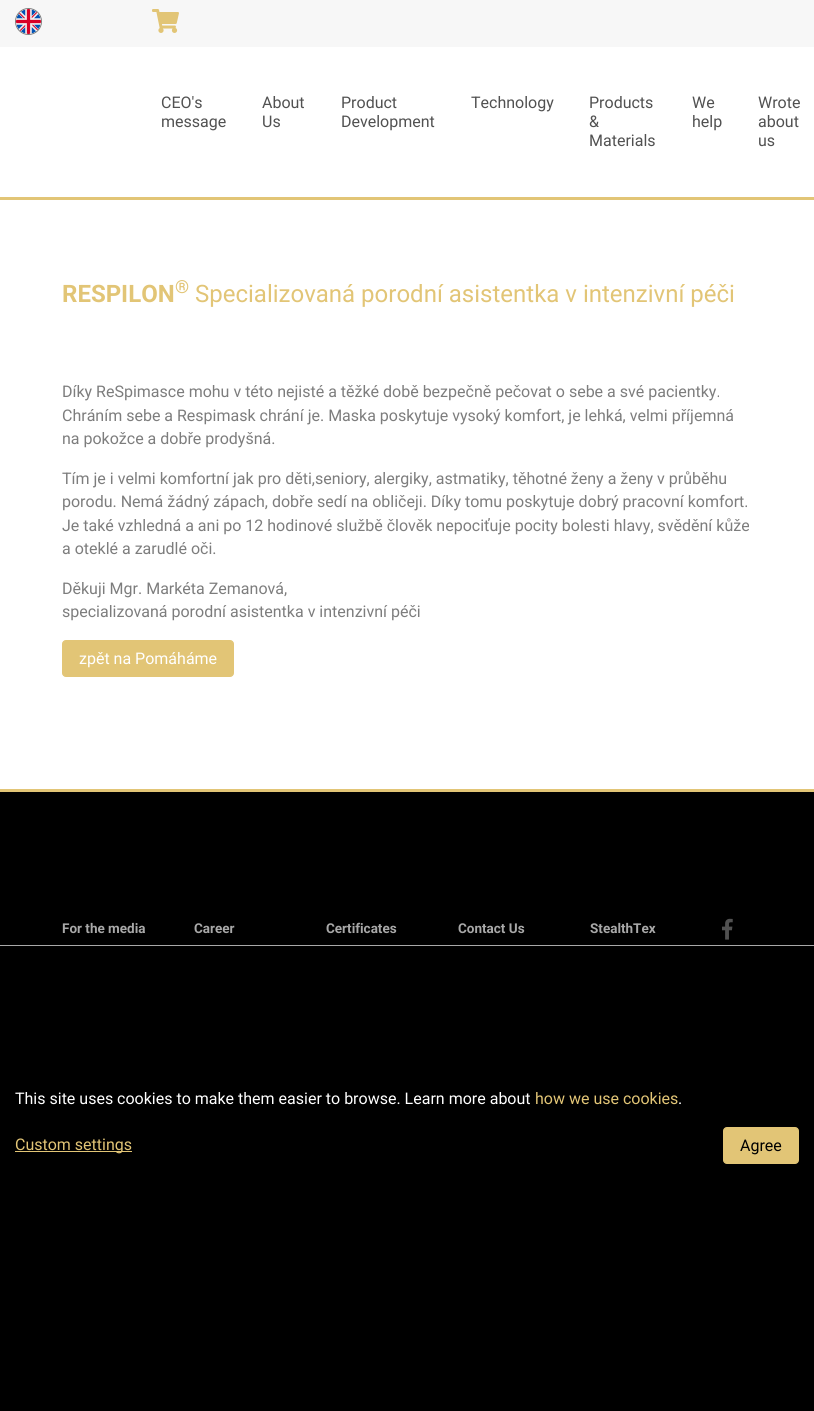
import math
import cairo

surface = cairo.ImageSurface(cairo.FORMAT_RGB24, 814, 1411)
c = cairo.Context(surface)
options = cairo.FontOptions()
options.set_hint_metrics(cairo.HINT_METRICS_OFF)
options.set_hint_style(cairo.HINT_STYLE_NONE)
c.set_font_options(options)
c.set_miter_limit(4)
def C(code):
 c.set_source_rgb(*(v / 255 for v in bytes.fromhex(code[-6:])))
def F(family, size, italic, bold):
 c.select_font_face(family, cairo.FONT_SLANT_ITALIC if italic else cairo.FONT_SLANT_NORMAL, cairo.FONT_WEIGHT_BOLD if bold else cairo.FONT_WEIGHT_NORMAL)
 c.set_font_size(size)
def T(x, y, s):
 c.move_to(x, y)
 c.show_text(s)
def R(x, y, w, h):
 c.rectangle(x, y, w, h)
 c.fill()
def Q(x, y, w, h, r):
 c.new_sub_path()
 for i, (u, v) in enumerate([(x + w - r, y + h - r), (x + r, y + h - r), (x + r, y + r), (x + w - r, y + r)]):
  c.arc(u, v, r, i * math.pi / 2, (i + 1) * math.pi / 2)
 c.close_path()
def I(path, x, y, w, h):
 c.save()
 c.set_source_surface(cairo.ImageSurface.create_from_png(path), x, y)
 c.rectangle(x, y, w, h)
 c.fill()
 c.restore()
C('ffffff')
c.paint()
C('e2c576')
R(0,197,814,3)
C('f7f7f7')
R(0,0,814,47)
c.arc(28.5,21.5,13,0,2 * math.pi)
C('7d7d7d')
c.set_line_width(1)
c.stroke()
I('1.png',16,9,25,25)
I('2.png',152,9,27,24)
F('Roboto',16,0,0)
C('515151')
T(161,108,'CEO\'s')
T(161,127,'message')
T(262,108,'About')
T(262,127,'Us')
T(341,108,'Product')
T(341,127,'Development')
T(471,108,'Technology')
T(589,108,'Products')
T(589,127,'&')
T(589,146,'Materials')
T(692,108,'We')
T(692,127,'help')
T(758,108,'Wrote')
T(758,127,'about')
T(758,146,'us')
F('Roboto',24,0,1)
C('e2c576')
T(62,302,'RESPILON')
F('Roboto',18,0,1)
T(175,293,'®')
F('Roboto',24,0,0)
T(195,302,'Specializovaná porodní asistentka v intenzivní péči')
F('Roboto',16,0,0)
C('7d7d7d')
T(62,397,'Díky ReSpimasce mohu v této nejisté a těžké době bezpečně pečovat o sebe a své pacientky.')
T(62,421,'Chráním sebe a Respimask chrání je. Maska poskytuje vysoký komfort, je lehká, velmi příjemná')
T(62,444,'na pokožce a dobře prodyšná.')
T(62,484,'Tím je i velmi komfortní jak pro děti,seniory, alergiky, astmatiky, těhotné ženy a ženy v průběhu')
T(62,507,'porodu. Nemá žádný zápach, dobře sedí na obličeji. Díky tomu poskytuje dobrý pracovní komfort.')
T(62,531,'Je také vzhledná a ani po 12 hodinové službě člověk nepociťuje pocity bolesti hlavy, svědění kůže')
T(62,554,'a oteklé a zarudlé oči.')
T(62,594,'Děkuji Mgr. Markéta Zemanová,')
T(62,617,'specializovaná porodní asistentka v intenzivní péči')
C('e2c576')
Q(62.5,640.5,171,36,3.5)
c.fill_preserve()
c.stroke()
C('ffffff')
T(79,664,'zpět na Pomáháme')
C('000000')
R(0,792,814,153)
C('e2c576')
R(0,789,814,3)
F('Roboto',13.5,0,1)
C('a8a8a8')
T(62,933,'For the media')
T(194,933,'Career')
T(326,933,'Certificates')
T(458,933,'Contact Us')
T(590,933,'StealthTex')
I('3.png',722,918,11,22)
C('000000')
R(0,946,814,465)
C('a8a8a8')
R(0,945,814,1)
F('Roboto',16,0,0)
C('ffffff')
T(15,1104,'This site uses cookies to make them easier to browse. Learn more about')
C('e2c576')
T(535,1104,'how we use cookies')
C('ffffff')
T(678,1104,'.')
C('e2c576')
R(15,1151,117,1)
T(15,1150,'Custom settings')
Q(723.5,1127.5,75,36,3.5)
c.fill_preserve()
c.stroke()
C('000000')
T(740,1151,'Agree')
surface.write_to_png('o.png')
